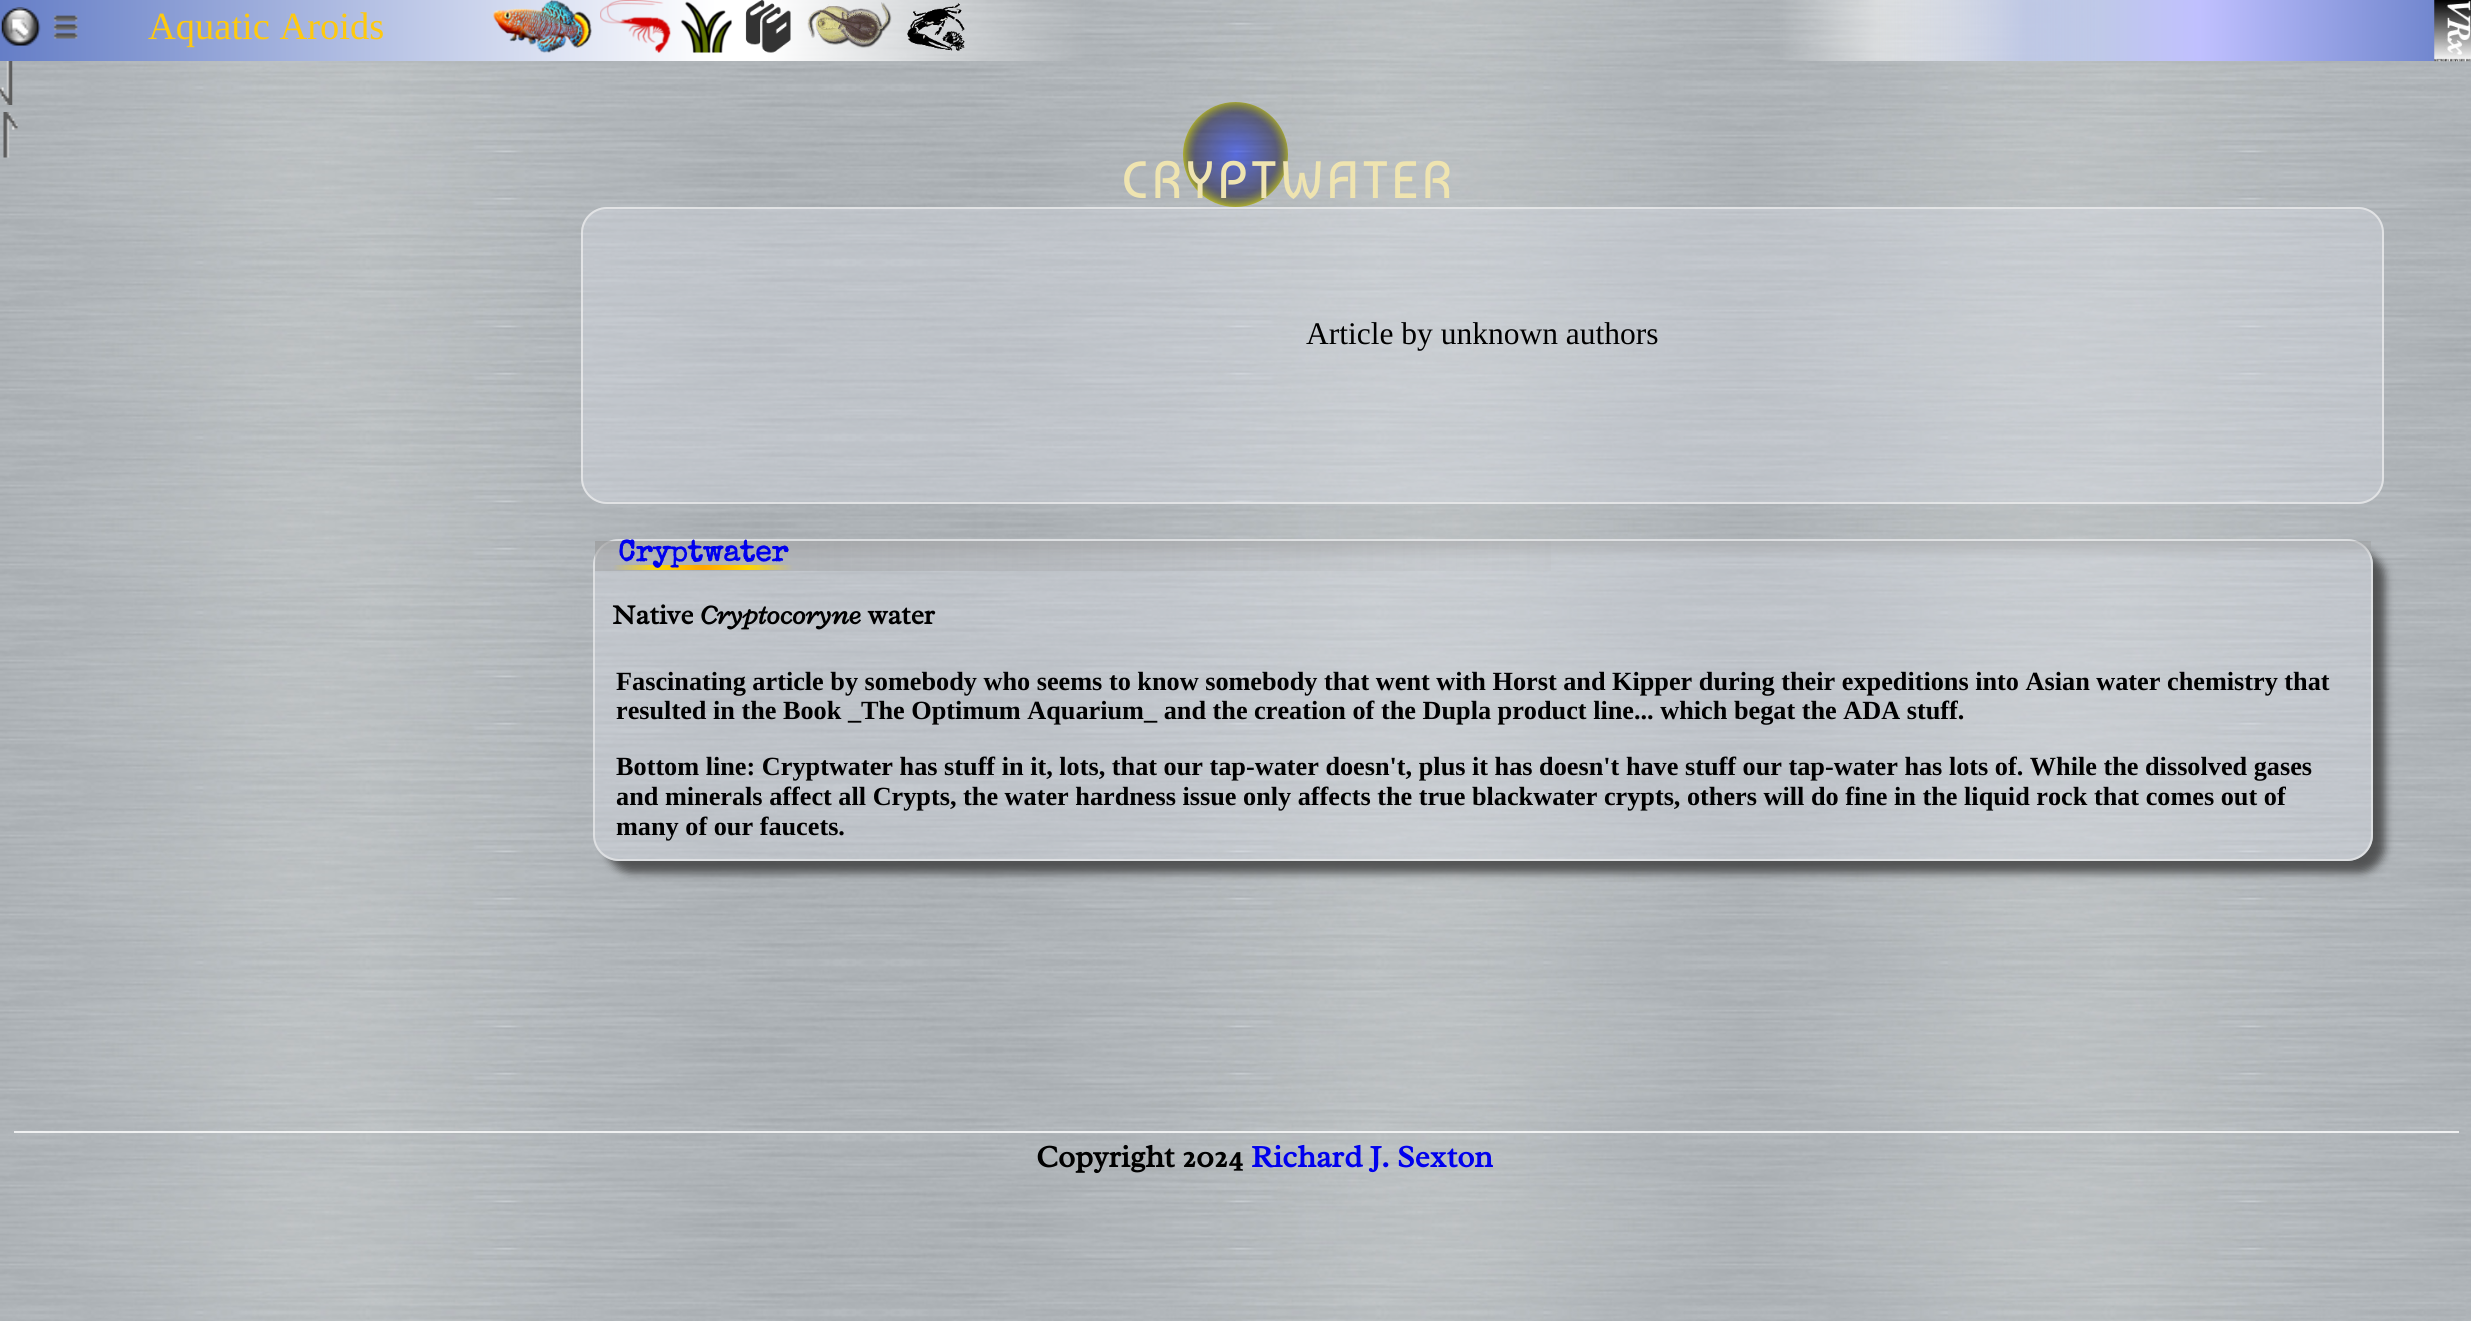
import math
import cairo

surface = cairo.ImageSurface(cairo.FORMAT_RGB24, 2471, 1321)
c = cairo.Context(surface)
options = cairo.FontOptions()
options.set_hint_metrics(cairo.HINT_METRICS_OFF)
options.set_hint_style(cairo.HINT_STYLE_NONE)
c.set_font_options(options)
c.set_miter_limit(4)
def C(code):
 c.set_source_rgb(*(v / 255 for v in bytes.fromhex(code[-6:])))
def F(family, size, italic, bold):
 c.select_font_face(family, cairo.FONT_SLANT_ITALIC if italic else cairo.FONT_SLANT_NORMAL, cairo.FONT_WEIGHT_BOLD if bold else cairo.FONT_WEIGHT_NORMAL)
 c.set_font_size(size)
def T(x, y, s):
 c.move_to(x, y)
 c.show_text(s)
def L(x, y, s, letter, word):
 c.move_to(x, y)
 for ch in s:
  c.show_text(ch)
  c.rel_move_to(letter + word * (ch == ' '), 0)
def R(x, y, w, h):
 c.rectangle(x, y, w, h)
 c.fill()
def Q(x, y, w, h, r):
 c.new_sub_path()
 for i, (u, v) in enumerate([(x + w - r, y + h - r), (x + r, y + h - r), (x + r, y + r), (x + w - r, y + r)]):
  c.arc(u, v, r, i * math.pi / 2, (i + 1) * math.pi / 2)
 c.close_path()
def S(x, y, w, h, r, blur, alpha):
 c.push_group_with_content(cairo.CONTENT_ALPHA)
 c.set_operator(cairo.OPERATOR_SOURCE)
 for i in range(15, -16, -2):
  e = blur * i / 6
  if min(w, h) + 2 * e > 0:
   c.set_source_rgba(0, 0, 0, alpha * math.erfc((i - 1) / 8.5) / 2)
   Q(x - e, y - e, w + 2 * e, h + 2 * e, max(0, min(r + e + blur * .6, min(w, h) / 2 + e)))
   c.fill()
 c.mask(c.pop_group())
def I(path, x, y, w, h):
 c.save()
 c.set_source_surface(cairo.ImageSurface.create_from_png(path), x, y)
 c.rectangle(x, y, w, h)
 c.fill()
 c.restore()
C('ffffff')
c.paint()
I('1.png',0,0,2471,1321)
gradient = cairo.LinearGradient(0,31,2471,31)
gradient.add_color_stop_rgba(0,0.396,0.494,0.78,1)
gradient.add_color_stop_rgba(.29,1,1,1,1)
gradient.add_color_stop_rgba(.31,1,1,1,1)
gradient.add_color_stop_rgba(.36,1,1,1,.6)
gradient.add_color_stop_rgba(.44,1,1,1,0)
gradient.add_color_stop_rgba(.72,1,1,1,0)
gradient.add_color_stop_rgba(.76,1,1,1,.5)
gradient.add_color_stop_rgba(.82,0.749,0.788,0.91,.9)
gradient.add_color_stop_rgba(.85,0.749,0.788,0.91,1)
gradient.add_color_stop_rgba(.89,0.753,0.753,1,1)
gradient.add_color_stop_rgba(1,0.396,0.494,0.78,1)
c.set_source(gradient)
R(0,0,2435,61)
I('2.png',493,0,99,53)
I('3.png',600,0,71,53)
I('4.png',680,1,52,52)
I('5.png',745,0,46,53)
I('6.png',807,2,85,46)
I('7.png',907,3,58,48)
I('8.png',2434,0,37,62)
I('9.png',1,7,40,39)
I('10.png',53,15,25,24)
c.set_source_rgba(1,1,1,0.8)
R(14,1131,2445,2)
F('Liberation Serif',38.5,0,0)
C('ffc90e')
T(148,39,'Aquatic Aroids')
F('Radley',31.5,0,1)
C('000000')
T(1036,1167,'Copyright 2024')
C('0000ee')
T(1251,1167,'Richard J. Sexton')
I('11.png',0,61,13,44)
I('12.png',3,112,15,46)
F('Baumans',52.5,0,0)
C('efe4b0')
L(1121,198,'CRYPTWATER',3.5,0)
c.set_source_rgba(0.902,0.922,0.961,0.3)
Q(581,207,1803,297,26)
c.fill()
Q(582,208,1801,295,25)
c.set_source_rgba(0.941,0.941,0.941,0.7)
c.stroke()
F('Liberation Serif',31.5,0,0)
C('000000')
T(1306,344,'Article by unknown authors')
c.save()
c.set_fill_rule(cairo.FILL_RULE_EVEN_ODD)
c.new_path()
c.move_to(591,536)
c.line_to(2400,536)
c.line_to(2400,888)
c.line_to(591,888)
c.close_path()
c.move_to(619,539)
c.line_to(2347,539)
c.curve_to(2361.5,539,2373,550.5,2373,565)
c.line_to(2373,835)
c.curve_to(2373,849.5,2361.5,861,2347,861)
c.line_to(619,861)
c.curve_to(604.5,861,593,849.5,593,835)
c.line_to(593,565)
c.curve_to(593,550.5,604.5,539,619,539)
c.close_path()
c.clip()
C('323232')
S(606,551,1779,322,26,4.5,.75)
c.restore()
c.set_source_rgba(0.902,0.922,0.961,0.3)
Q(593,539,1780,322,26)
c.fill()
Q(594,540,1778,320,25)
c.set_source_rgba(0.941,0.941,0.941,0.6)
c.stroke()
gradient = cairo.LinearGradient(1483,541,1483,571)
gradient.add_color_stop_rgba(0,0.588,0.588,0.588,.4)
gradient.add_color_stop_rgba(.6,0.588,0.588,0.588,0)
c.set_source(gradient)
R(595,541,1776,17)
gradient = cairo.LinearGradient(595,556,2371,556)
gradient.add_color_stop_rgba(0,0.588,0.588,0.588,.4)
gradient.add_color_stop_rgba(.6,0.588,0.588,0.588,0)
c.set_source(gradient)
R(595,541,956,30)
gradient = cairo.LinearGradient(793,568,613,568)
gradient.add_color_stop_rgba(0,1,0.843,0,0)
gradient.add_color_stop_rgba(.25,1,0.843,0,1)
gradient.add_color_stop_rgba(.5,1,0.647,0,1)
gradient.add_color_stop_rgba(.75,1,0.843,0,1)
gradient.add_color_stop_rgba(1,1,0.843,0,0)
c.set_source(gradient)
R(613,565,180,5)
F('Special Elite',29.75,0,1)
C('0000ee')
T(618,561,'Cryptwater')
F('Radley',28,0,1)
C('000000')
T(612,624,'Native')
F('Radley',28,1,1)
T(700,624,'Cryptocoryne')
F('Radley',28,0,1)
T(868,624,'water')
F('Liberation Serif',26.25,0,1)
T(616,690,'Fascinating article by somebody who seems to know somebody that went with Horst and Kipper during their expeditions into Asian water chemistry that')
T(616,719,'resulted in the Book _The Optimum Aquarium_ and the creation of the Dupla product line... which begat the ADA stuff.')
T(616,775,'Bottom line: Cryptwater has stuff in it, lots, that our tap-water doesn\'t, plus it has doesn\'t have stuff our tap-water has lots of. While the dissolved gases')
T(616,805,'and minerals affect all Crypts, the water hardness issue only affects the true blackwater crypts, others will do fine in the liquid rock that comes out of')
T(616,835,'many of our faucets.')
surface.write_to_png('o.png')
